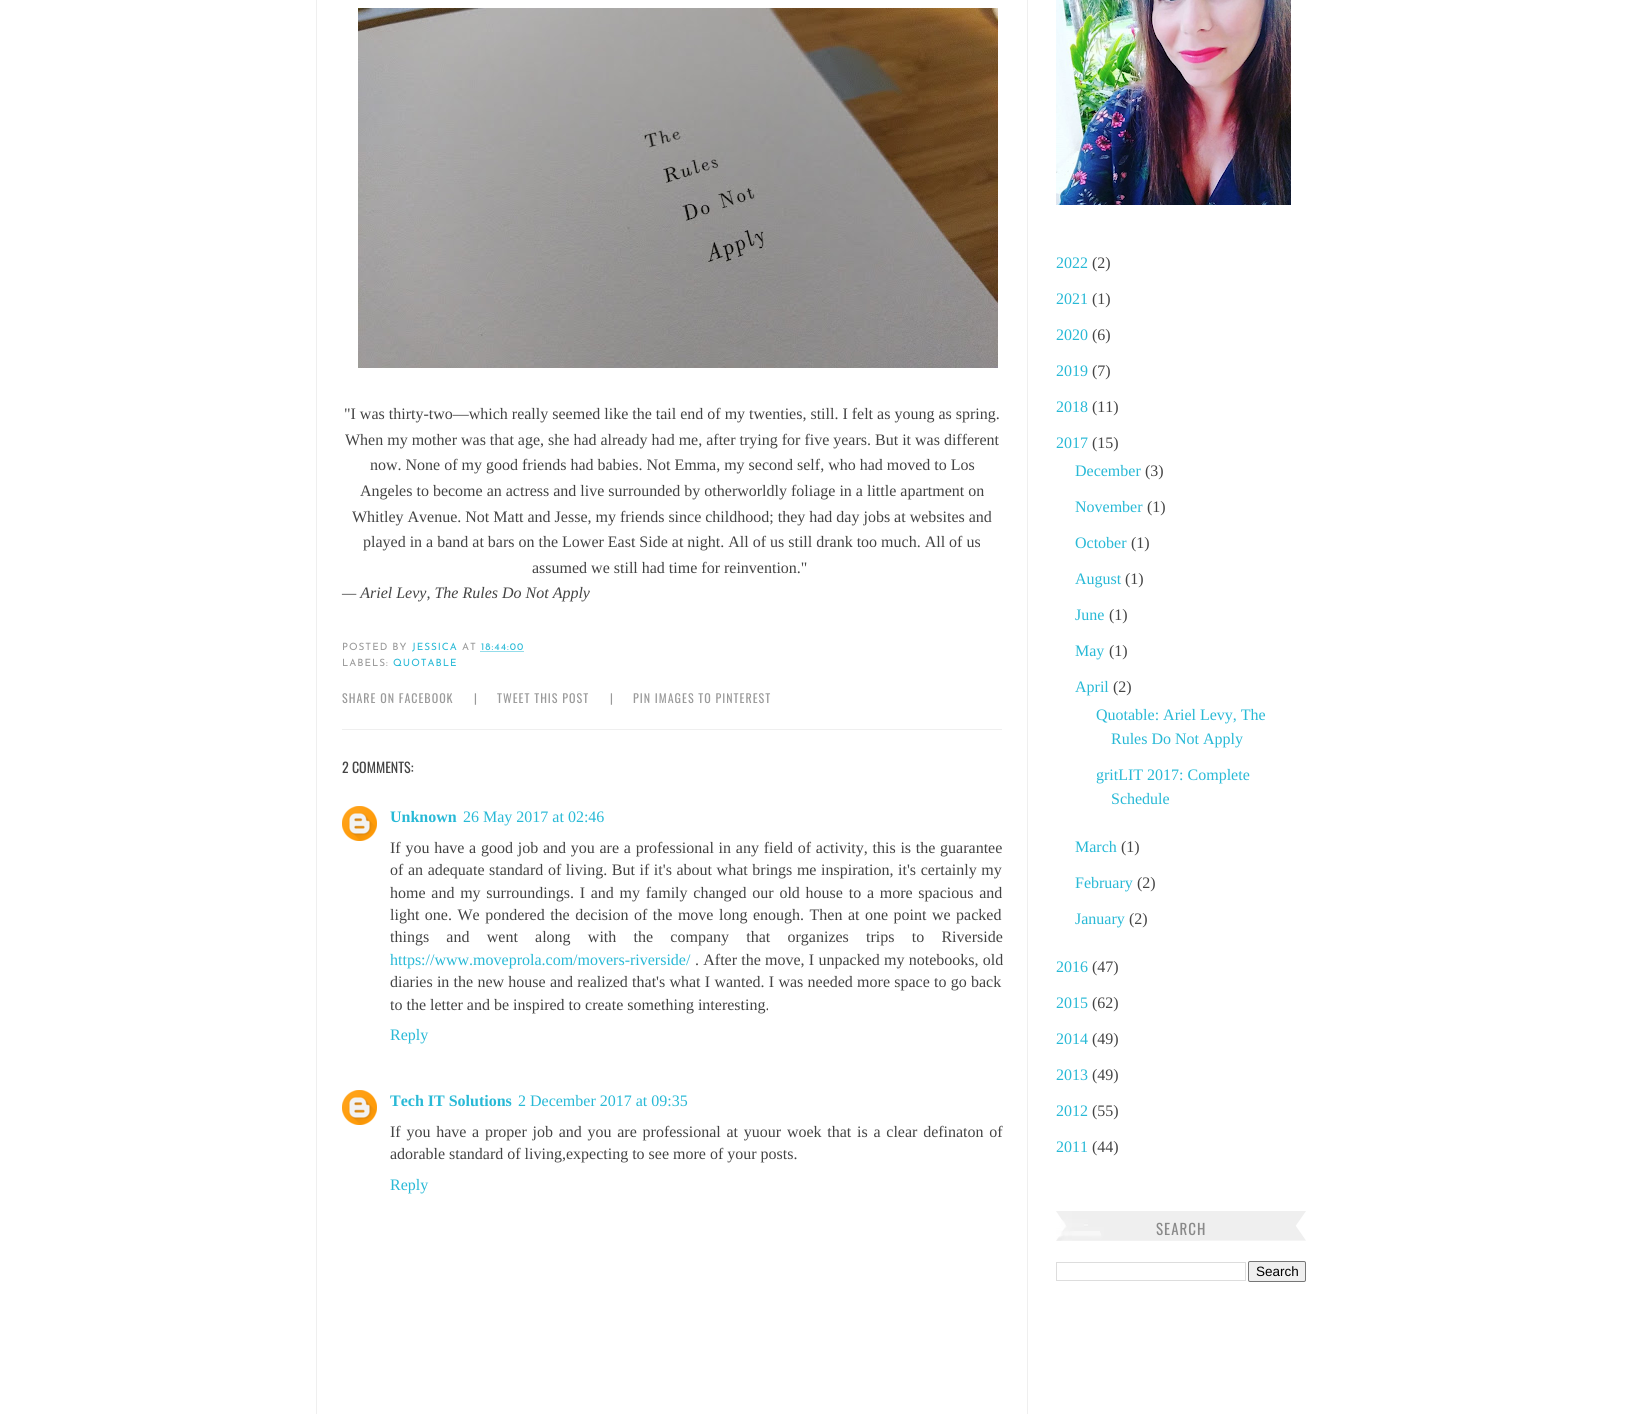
import math
import cairo

surface = cairo.ImageSurface(cairo.FORMAT_RGB24, 1632, 1414)
c = cairo.Context(surface)
options = cairo.FontOptions()
options.set_hint_metrics(cairo.HINT_METRICS_OFF)
options.set_hint_style(cairo.HINT_STYLE_NONE)
c.set_font_options(options)
c.set_miter_limit(4)
def C(code):
 c.set_source_rgb(*(v / 255 for v in bytes.fromhex(code[-6:])))
def F(family, size, italic, bold):
 c.select_font_face(family, cairo.FONT_SLANT_ITALIC if italic else cairo.FONT_SLANT_NORMAL, cairo.FONT_WEIGHT_BOLD if bold else cairo.FONT_WEIGHT_NORMAL)
 c.set_font_size(size)
def T(x, y, s):
 c.move_to(x, y)
 c.show_text(s)
def L(x, y, s, letter, word):
 c.move_to(x, y)
 for ch in s:
  c.show_text(ch)
  c.rel_move_to(letter + word * (ch == ' '), 0)
def R(x, y, w, h):
 c.rectangle(x, y, w, h)
 c.fill()
def Q(x, y, w, h, r):
 c.new_sub_path()
 for i, (u, v) in enumerate([(x + w - r, y + h - r), (x + r, y + h - r), (x + r, y + r), (x + w - r, y + r)]):
  c.arc(u, v, r, i * math.pi / 2, (i + 1) * math.pi / 2)
 c.close_path()
def I(path, x, y, w, h):
 c.save()
 c.set_source_surface(cairo.ImageSurface.create_from_png(path), x, y)
 c.rectangle(x, y, w, h)
 c.fill()
 c.restore()
C('ffffff')
c.paint()
C('efefef')
R(1027,0,1,1414)
R(316,0,1,1414)
R(342,729,660,1)
I('1.png',358,8,640,360)
F('Liberation Serif',16,0,0)
C('444444')
T(344,419,'"I was thirty-two—which really seemed like the tail end of my twenties, still. I felt as young as spring.')
T(345,445,'When my mother was that age, she had already had me, after trying for five years. But it was different')
T(370,470,'now. None of my good friends had babies. Not Emma, my second self, who had moved to Los')
T(360,496,'Angeles to become an actress and live surrounded by otherworldly foliage in a little apartment on')
T(352,522,'Whitley Avenue. Not Matt and Jesse, my friends since childhood; they had day jobs at websites and')
T(363,547,'played in a band at bars on the Lower East Side at night. All of us still drank too much. All of us')
T(532,573,'assumed we still had time for reinvention."')
F('Liberation Serif',16,1,0)
T(342,598,'— Ariel Levy, The Rules Do Not Apply')
F('Josefin Sans Thin',10,0,0)
C('999999')
L(342,650,'POSTED BY',1,0)
C('28b9d6')
L(412,650,'JESSICA',1,0)
C('999999')
L(462,650,'AT',1,0)
C('28b9d6')
L(481,650,'18:44:00',1,0)
c.new_path()
c.move_to(480.5,651.5)
c.line_to(524,651.5)
c.set_line_width(1)
c.set_dash([1,1])
c.stroke()
C('999999')
L(342,666,'LABELS:',1,0)
C('28b9d6')
L(393,666,'QUOTABLE',1,0)
F('Oswald',12,0,0)
C('999999')
L(342,703,'SHARE ON FACEBOOK',1,0)
L(474,703,'|',1,0)
L(497,703,'TWEET THIS POST',1,0)
L(610,703,'|',1,0)
L(633,703,'PIN IMAGES TO PINTEREST',1,0)
F('Oswald',14,0,0)
C('444444')
T(342,773,'2 COMMENTS:')
I('2.png',342,806,35,35)
F('Liberation Serif',16,0,1)
C('28b9d6')
T(390,822,'Unknown')
F('Liberation Serif',16,0,0)
T(463,822,'26 May 2017 at 02:46')
C('444444')
L(390,853,'If you have a good job and you are a professional in any field of activity, this is the guarantee',0,.75)
L(390,875,'of an adequate standard of living. But if it\'s about what brings me inspiration, it\'s certainly my',0,.6)
L(390,898,'home and my surroundings. I and my family changed our old house to a more spacious and',0,1.75)
L(390,920,'light one. We pondered the decision of the move long enough. Then at one point we packed',0,1.5)
L(390,942,'things and went along with the company that organizes trips to Riverside',0,13.25)
C('28b9d6')
T(390,965,'https://www.moveprola.com/movers-riverside/')
C('444444')
L(695,965,'. After the move, I unpacked my notebooks, old',0,.25)
L(390,987,'diaries in the new house and realized that\'s what I wanted. I was needed more space to go back',0,.25)
T(390,1010,'to the letter and be inspired to create something interesting.')
C('28b9d6')
T(390,1040,'Reply')
I('2.png',342,1090,35,35)
F('Liberation Serif',16,0,1)
T(390,1106,'Tech IT Solutions')
F('Liberation Serif',16,0,0)
T(518,1106,'2 December 2017 at 09:35')
C('444444')
L(390,1137,'If you have a proper job and you are professional at yuour woek that is a clear definaton of',0,1.75)
T(390,1159,'adorable standard of living,expecting to see more of your posts.')
C('28b9d6')
T(390,1190,'Reply')
I('3.png',1056,0,235,205)
T(1056,268,'2022')
C('444444')
T(1092,268,'(2)')
C('28b9d6')
T(1056,304,'2021')
C('444444')
T(1092,304,'(1)')
C('28b9d6')
T(1056,340,'2020')
C('444444')
T(1092,340,'(6)')
C('28b9d6')
T(1056,376,'2019')
C('444444')
T(1092,376,'(7)')
C('28b9d6')
T(1056,412,'2018')
C('444444')
T(1092,412,'(11)')
C('28b9d6')
T(1056,448,'2017')
C('444444')
T(1092,448,'(15)')
C('28b9d6')
T(1075,476,'December')
C('444444')
T(1145,476,'(3)')
C('28b9d6')
T(1075,512,'November')
C('444444')
T(1147,512,'(1)')
C('28b9d6')
T(1075,548,'October')
C('444444')
T(1131,548,'(1)')
C('28b9d6')
T(1075,584,'August')
C('444444')
T(1125,584,'(1)')
C('28b9d6')
T(1075,620,'June')
C('444444')
T(1109,620,'(1)')
C('28b9d6')
T(1075,656,'May')
C('444444')
T(1109,656,'(1)')
C('28b9d6')
T(1075,692,'April')
C('444444')
T(1113,692,'(2)')
C('28b9d6')
T(1096,720,'Quotable: Ariel Levy, The')
T(1111,744,'Rules Do Not Apply')
T(1096,780,'gritLIT 2017: Complete')
T(1111,804,'Schedule')
T(1075,852,'March')
C('444444')
T(1121,852,'(1)')
C('28b9d6')
T(1075,888,'February')
C('444444')
T(1137,888,'(2)')
C('28b9d6')
T(1075,924,'January')
C('444444')
T(1129,924,'(2)')
C('28b9d6')
T(1056,972,'2016')
C('444444')
T(1092,972,'(47)')
C('28b9d6')
T(1056,1008,'2015')
C('444444')
T(1092,1008,'(62)')
C('28b9d6')
T(1056,1044,'2014')
C('444444')
T(1092,1044,'(49)')
C('28b9d6')
T(1056,1080,'2013')
C('444444')
T(1092,1080,'(49)')
C('28b9d6')
T(1056,1116,'2012')
C('444444')
T(1092,1116,'(55)')
C('28b9d6')
T(1056,1152,'2011')
C('444444')
T(1092,1152,'(44)')
I('4.png',1056,1211,250,30)
F('Oswald',15,0,0)
C('898989')
L(1156,1235,'SEARCH',1,0)
c.rectangle(1056.5,1262.5,189,18)
C('dddddd')
c.set_dash([])
c.stroke()
C('efefef')
Q(1248.5,1261.5,57,20,1.5)
c.fill_preserve()
C('767676')
c.stroke()
F('Liberation Sans',13.5,0,0)
C('000000')
T(1256,1276,'Search')
surface.write_to_png('o.png')
